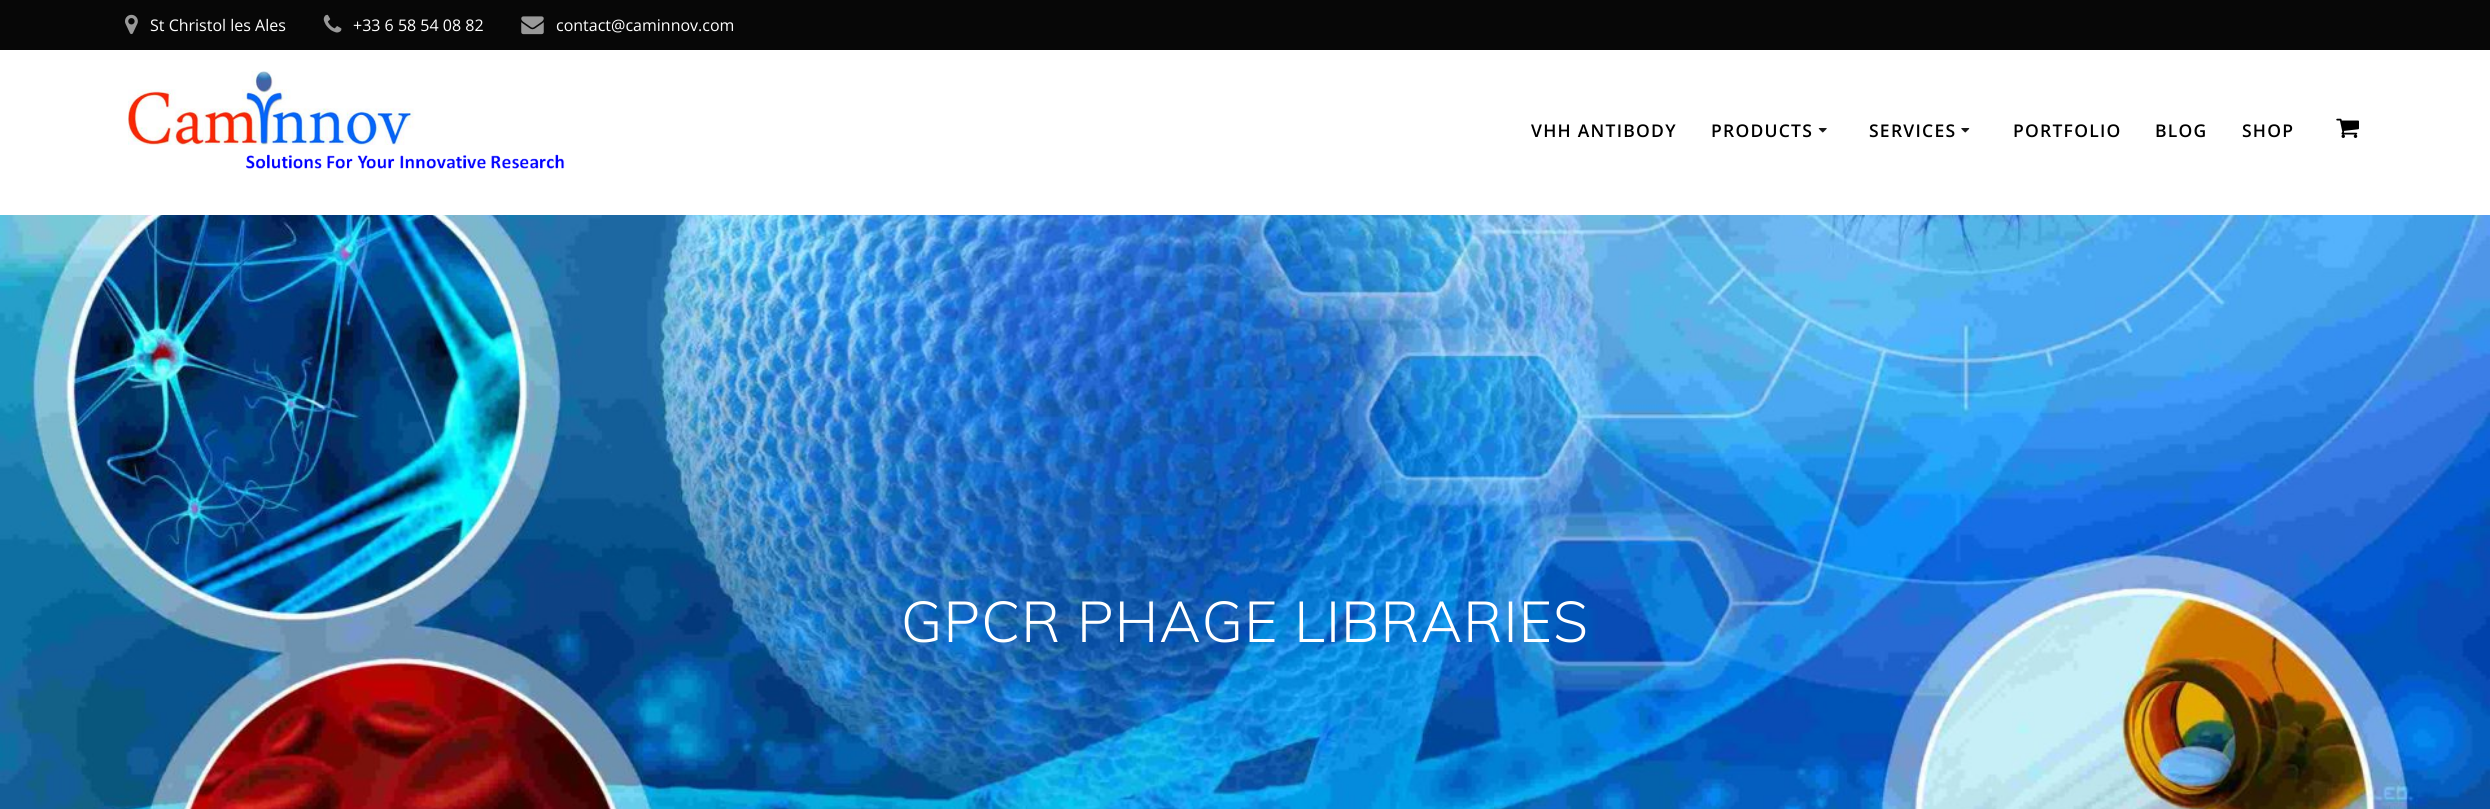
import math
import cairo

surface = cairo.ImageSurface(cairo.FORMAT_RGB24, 2490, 809)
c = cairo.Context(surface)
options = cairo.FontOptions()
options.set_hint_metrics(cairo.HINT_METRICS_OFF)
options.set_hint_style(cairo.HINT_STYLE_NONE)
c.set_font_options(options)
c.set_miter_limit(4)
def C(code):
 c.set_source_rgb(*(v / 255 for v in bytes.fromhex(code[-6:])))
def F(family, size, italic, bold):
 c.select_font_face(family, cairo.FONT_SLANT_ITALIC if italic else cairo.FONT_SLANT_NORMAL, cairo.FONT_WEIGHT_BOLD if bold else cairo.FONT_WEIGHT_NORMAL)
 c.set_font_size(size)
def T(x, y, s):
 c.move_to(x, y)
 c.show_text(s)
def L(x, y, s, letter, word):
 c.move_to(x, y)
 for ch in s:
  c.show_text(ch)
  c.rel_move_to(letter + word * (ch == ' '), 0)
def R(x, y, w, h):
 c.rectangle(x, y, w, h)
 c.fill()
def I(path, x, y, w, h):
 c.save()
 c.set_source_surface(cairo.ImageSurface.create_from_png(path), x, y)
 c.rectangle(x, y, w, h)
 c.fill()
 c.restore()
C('ffffff')
c.paint()
C('070707')
R(0,0,2490,50)
I('1.png',125,14,13,21)
F('Open Sans',16,0,0)
C('ffffff')
T(150,31,'St Christol les Ales')
I('2.png',323,14,19,19)
T(353,31,'+33 6 58 54 08 82')
I('3.png',521,16,23,19)
T(556,31,'contact@caminnov.com')
I('4.png',128,70,437,99)
F('Open Sans SemiBold',17.5,0,0)
C('000000')
L(1531,137,'VHH ANTIBODY',1.25,0)
L(1711,137,'PRODUCTS',1.25,0)
I('5.png',1818,128,9,5)
L(1869,137,'SERVICES',1.25,0)
I('6.png',1961,128,9,5)
L(2013,137,'PORTFOLIO',1.25,0)
L(2155,137,'BLOG',1.25,0)
L(2242,137,'SHOP',1.25,0)
I('7.png',2336,118,23,20)
I('8.png',0,215,2490,594)
F('Muli Light',56.9,0,0)
C('ffffff')
L(901,642,'GPCR PHAGE LIBRARIES',1.1,0)
surface.write_to_png('o.png')
